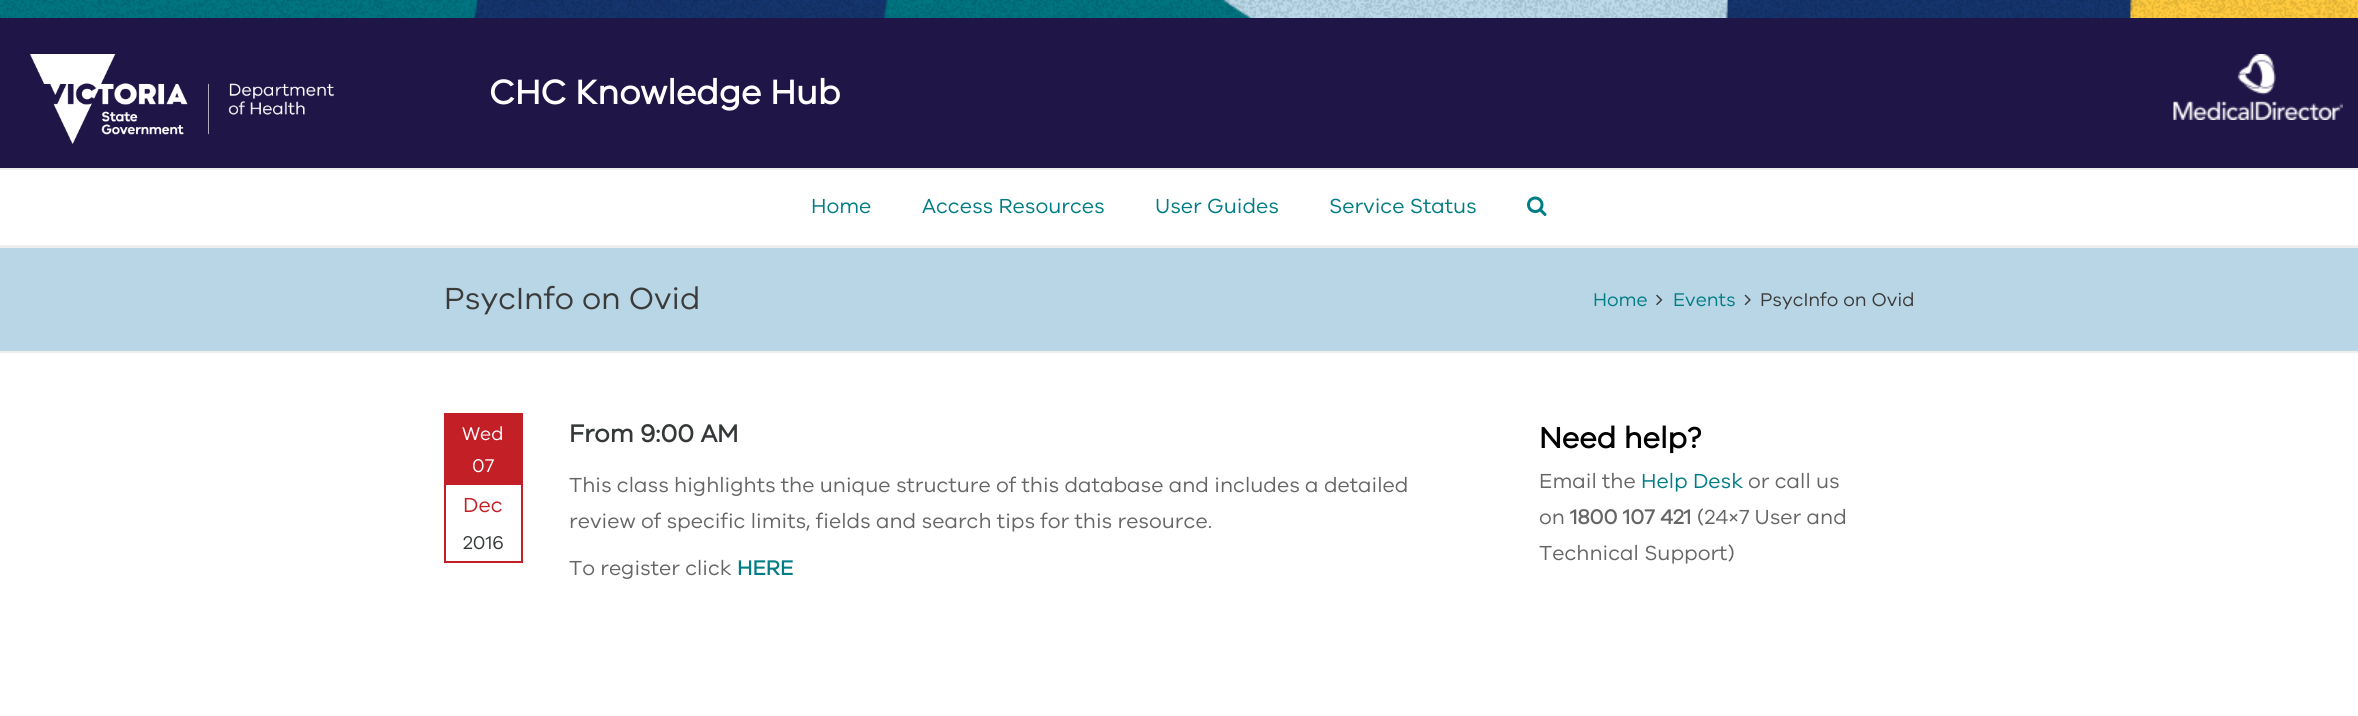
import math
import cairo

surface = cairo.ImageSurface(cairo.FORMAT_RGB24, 2358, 716)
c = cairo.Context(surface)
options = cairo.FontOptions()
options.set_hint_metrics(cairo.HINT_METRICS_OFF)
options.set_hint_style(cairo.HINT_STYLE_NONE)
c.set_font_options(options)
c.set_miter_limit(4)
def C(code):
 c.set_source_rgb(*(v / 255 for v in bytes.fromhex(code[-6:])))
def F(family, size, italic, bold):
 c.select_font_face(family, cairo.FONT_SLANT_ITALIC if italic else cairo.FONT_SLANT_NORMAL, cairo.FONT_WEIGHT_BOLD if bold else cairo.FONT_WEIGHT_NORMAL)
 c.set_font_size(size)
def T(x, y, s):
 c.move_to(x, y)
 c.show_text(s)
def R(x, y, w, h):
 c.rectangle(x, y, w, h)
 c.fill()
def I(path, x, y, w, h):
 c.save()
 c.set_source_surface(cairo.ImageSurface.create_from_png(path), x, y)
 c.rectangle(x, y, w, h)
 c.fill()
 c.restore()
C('ffffff')
c.paint()
I('1.png',0,0,2358,18)
C('eeeeee')
R(0,168,2358,2)
C('201547')
R(0,18,2358,150)
I('2.png',30,54,304,90)
F('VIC',34.9,0,1)
C('ffffff')
T(489,104,'CHC Knowledge Hub')
I('3.png',2173,54,170,66)
C('eeeeee')
R(0,245,2358,3)
F('VIC',21,0,0)
C('007c84')
T(811,213,'Home')
T(922,213,'Access Resources')
T(1155,213,'User Guides')
T(1329,213,'Service Status')
I('4.png',1527,196,20,20)
C('b8d6e6')
R(0,248,2358,103)
C('eeeeee')
R(0,351,2358,2)
F('VIC',31.5,0,0)
C('3b3b3b')
T(444,309,'PsycInfo on Ovid')
F('VIC',19,0,0)
C('007c84')
T(1593,306,'Home')
I('5.png',1656,294,7,12)
T(1673,306,'Events')
I('6.png',1744,294,7,12)
C('3b3b3b')
T(1760,306,'PsycInfo on Ovid')
C('c31f26')
R(444,413,77,72)
C('c32026')
R(521,413,2,150)
C('ffffff')
T(462,440,'Wed')
T(472,472,'07')
C('c32026')
R(444,561,78,2)
R(444,485,2,78)
F('VIC',21,0,0)
T(463,512,'Dec')
F('VIC',19,0,0)
C('343838')
T(463,549,'2016')
F('VIC',25.25,0,1)
T(569,442,'From 9:00 AM')
F('VIC',21,0,0)
C('666666')
T(569,492,'This class highlights the unique structure of this database and includes a detailed')
T(569,528,'review of specific limits, fields and search tips for this resource.')
T(569,575,'To register click')
F('VIC',21,0,1)
C('007c84')
T(737,575,'HERE')
F('VIC',30,0,1)
C('000000')
T(1539,448,'Need help?')
F('VIC',21,0,0)
C('666666')
T(1539,488,'Email the')
C('007c84')
T(1641,488,'Help Desk')
C('666666')
T(1748,488,'or call us')
T(1539,524,'on')
F('VIC',21,0,1)
T(1570,524,'1800 107 421')
F('VIC',21,0,0)
T(1697,524,'(24×7 User and')
T(1539,560,'Technical Support)')
surface.write_to_png('o.png')
